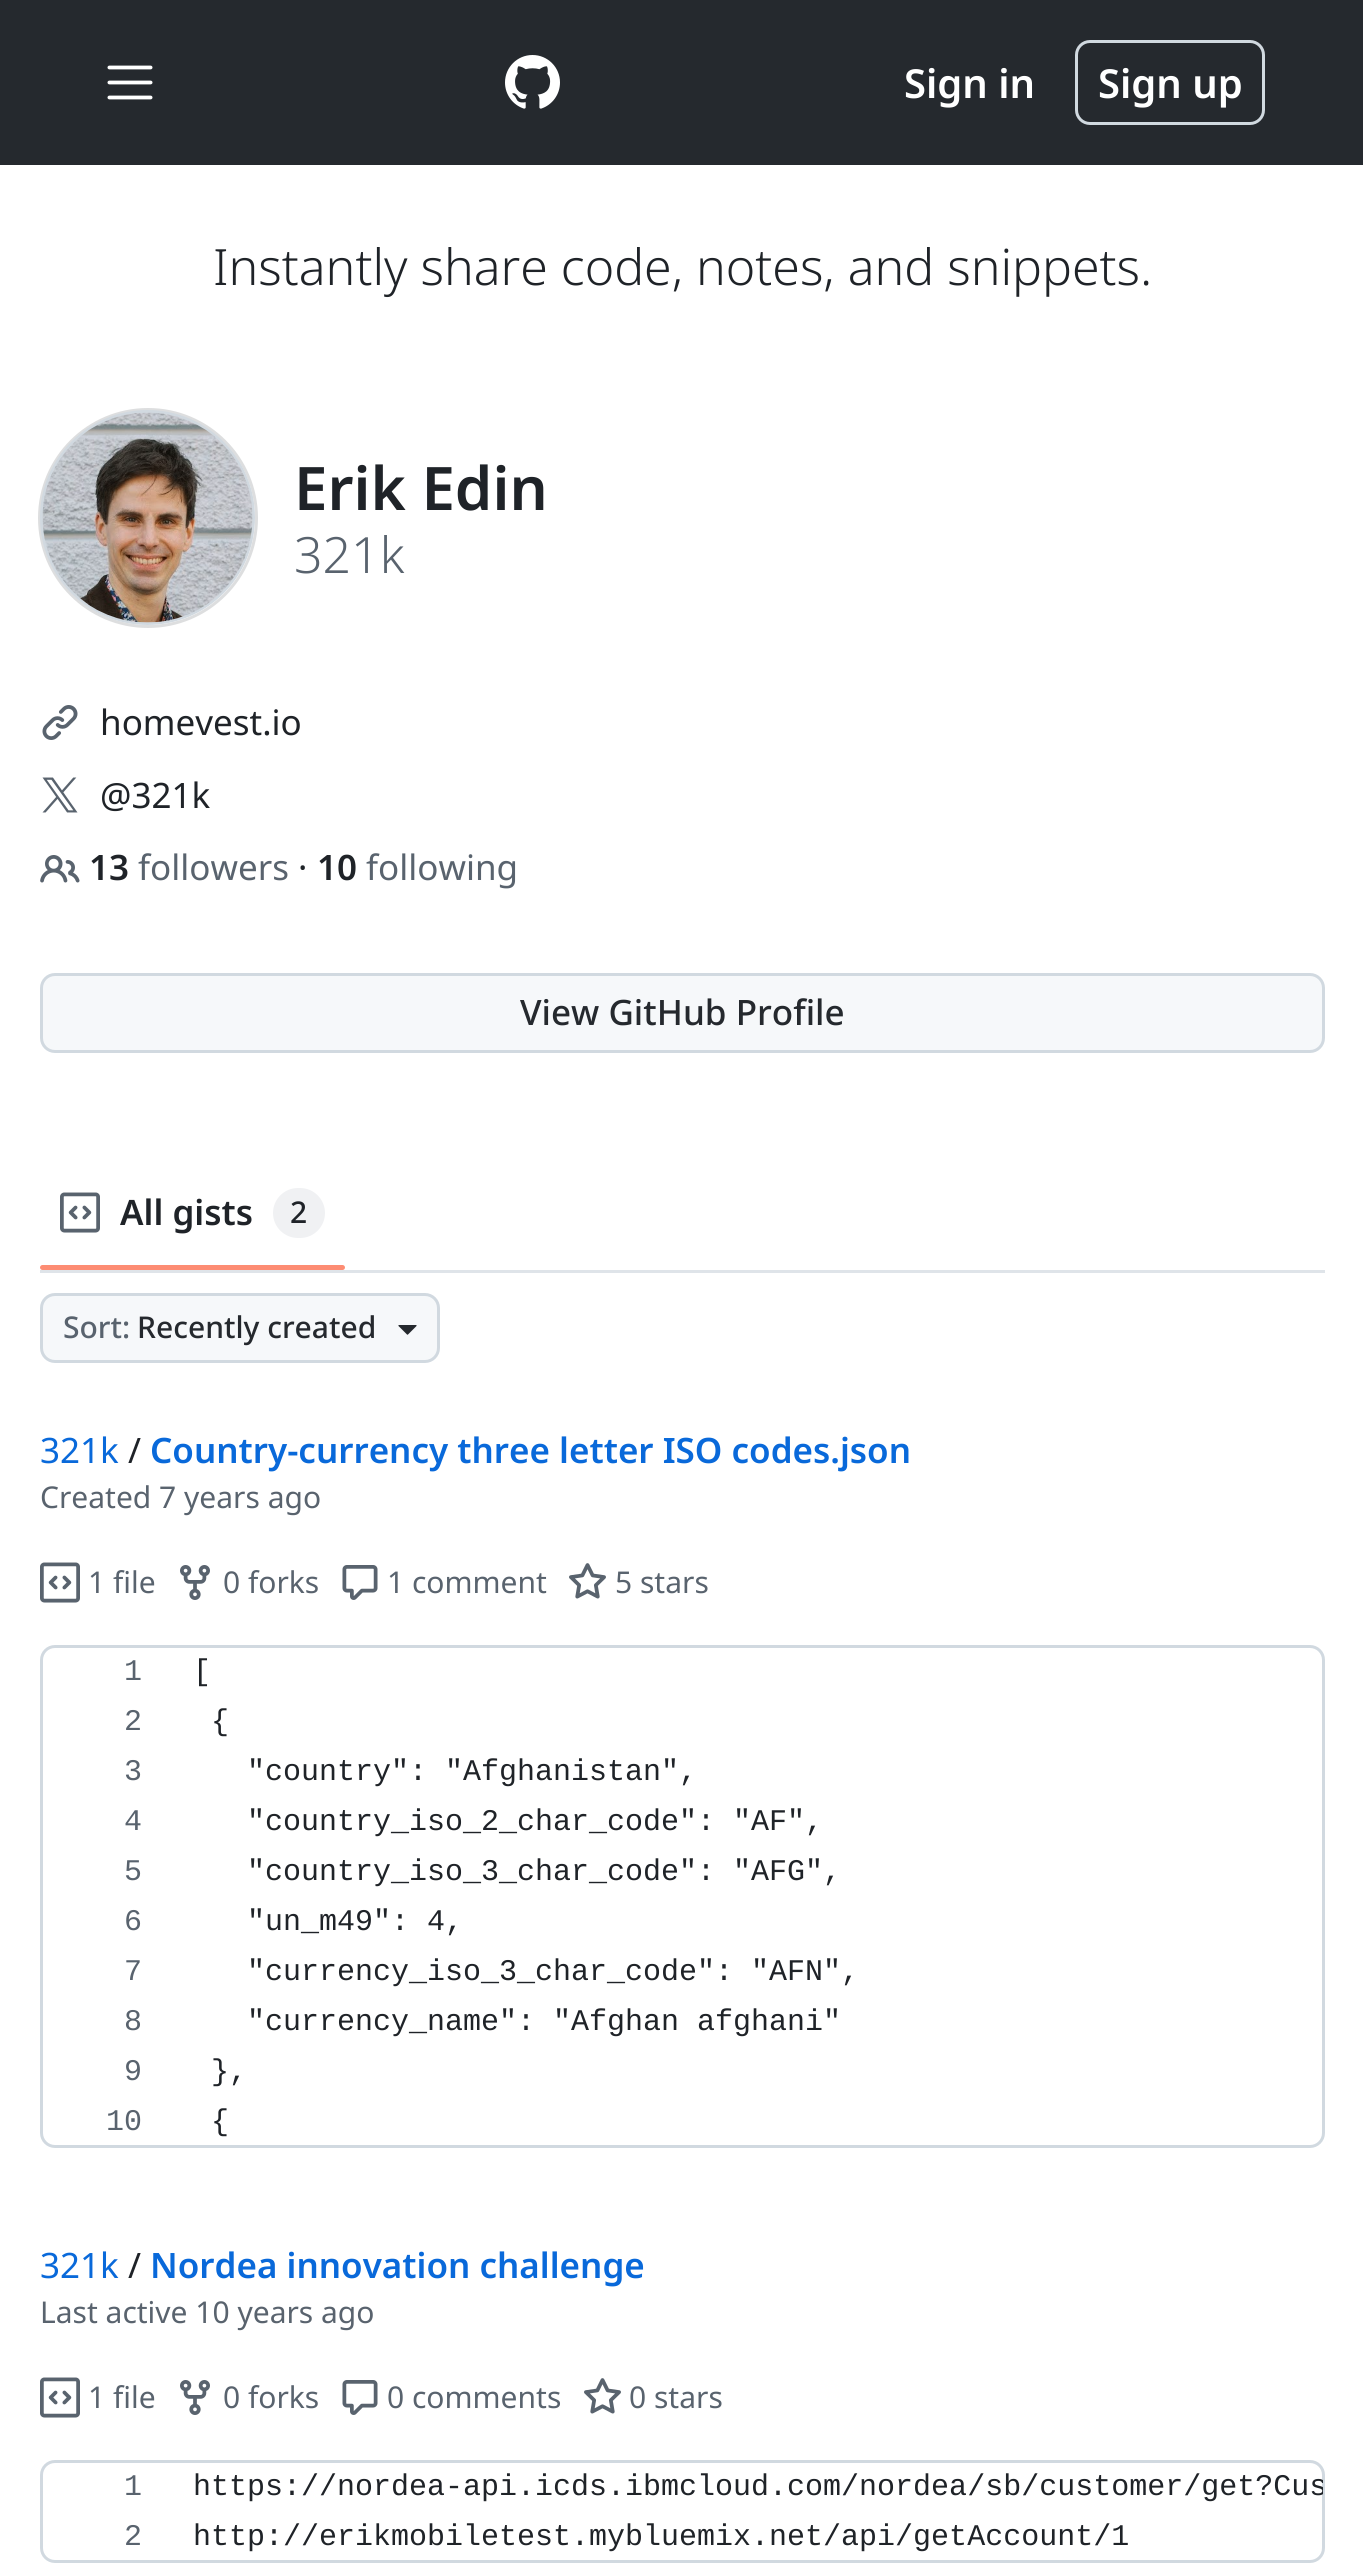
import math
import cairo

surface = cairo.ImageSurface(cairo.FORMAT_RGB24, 1363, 2572)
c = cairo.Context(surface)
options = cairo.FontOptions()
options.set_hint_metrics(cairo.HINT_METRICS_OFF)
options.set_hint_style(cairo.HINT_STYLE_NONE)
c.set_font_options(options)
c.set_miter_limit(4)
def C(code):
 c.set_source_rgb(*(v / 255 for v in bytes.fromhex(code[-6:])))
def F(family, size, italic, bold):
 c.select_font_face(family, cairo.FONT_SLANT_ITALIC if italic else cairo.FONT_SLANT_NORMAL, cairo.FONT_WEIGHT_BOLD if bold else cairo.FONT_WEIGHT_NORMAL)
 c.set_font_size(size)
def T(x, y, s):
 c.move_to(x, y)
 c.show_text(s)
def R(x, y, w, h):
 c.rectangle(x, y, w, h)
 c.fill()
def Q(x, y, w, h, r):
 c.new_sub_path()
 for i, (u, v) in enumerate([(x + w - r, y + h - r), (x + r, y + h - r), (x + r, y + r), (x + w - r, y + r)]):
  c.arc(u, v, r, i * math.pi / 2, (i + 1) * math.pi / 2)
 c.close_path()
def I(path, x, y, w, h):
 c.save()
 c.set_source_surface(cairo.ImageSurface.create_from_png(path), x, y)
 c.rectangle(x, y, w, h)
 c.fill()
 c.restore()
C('ffffff')
c.paint()
C('25292e')
R(0,0,1363,165)
I('1.png',107,65,46,35)
I('2.png',505,55,55,54)
F('Noto Sans SemiBold',40,0,0)
C('ffffff')
T(904,98,'Sign in')
Q(1076.5,41.5,187,82,13.5)
C('d1d9e0')
c.set_line_width(3)
c.stroke()
C('ffffff')
T(1098,98,'Sign up')
F('Noto Sans Light',50,0,0)
C('1f2328')
T(213,285,'Instantly share code, notes, and snippets.')
c.new_path()
c.arc(148,518,108.5,0,2 * math.pi)
C('dddedf')
c.stroke()
c.arc(147.5,517.5,106,0,2 * math.pi)
C('d1d9e0')
c.stroke()
I('3.png',42,412,211,211)
F('Noto Sans SemiBold',60,0,0)
C('1f2328')
T(294,510,'Erik Edin')
F('Noto Sans Light',50,0,0)
C('59636e')
T(294,573,'321k')
I('4.png',42,705,36,35)
F('Noto Sans',35,0,0)
C('1f2328')
T(100,735,'homevest.io')
I('5.png',42,777,36,36)
T(100,808,'@321k')
I('6.png',40,855,40,28)
F('Noto Sans SemiBold',35,0,0)
T(89,880,'13')
F('Noto Sans',35,0,0)
C('59636e')
T(138,880,'followers')
C('1f2328')
T(298,880,'·')
F('Noto Sans SemiBold',35,0,0)
T(317,880,'10')
F('Noto Sans',35,0,0)
C('59636e')
T(366,880,'following')
C('f6f8fa')
Q(41.5,974.5,1282,77,13.5)
c.fill_preserve()
C('d1d9e0')
c.stroke()
F('Noto Sans Medium',35,0,0)
C('25292e')
T(520,1025,'View GitHub Profile')
C('dfe4e9')
R(40,1270,1285,3)
I('7.png',60,1192,40,41)
F('Noto Sans SemiBold',35,0,0)
C('1f2328')
T(120,1225,'All gists')
C('f0f1f3')
Q(273,1188,52,50,25)
c.fill()
F('Noto Sans Medium',30,0,0)
C('1f2328')
T(290,1223,'2')
C('fd8c73')
Q(40,1265,305,5,2.5)
c.fill()
C('f6f8fa')
Q(41.5,1294.5,397,67,13.5)
c.fill_preserve()
C('d1d9e0')
c.stroke()
C('59636e')
T(63,1338,'Sort:')
C('25292e')
T(137,1338,'Recently created')
I('8.png',398,1325,19,10)
F('Noto Sans',35,0,0)
C('0969da')
T(40,1463,'321k')
C('1f2328')
T(128,1463,'/')
F('Noto Sans SemiBold',35,0,0)
C('0969da')
T(150,1463,'Country-currency three letter ISO codes.json')
F('Noto Sans',30,0,0)
C('59636e')
T(40,1508,'Created 7 years ago')
I('7.png',40,1562,40,41)
T(88,1593,'1 file')
I('9.png',180,1565,30,35)
T(223,1593,'0 forks')
I('10.png',342,1565,36,35)
T(387,1593,'1 comment')
I('11.png',569,1563,37,36)
T(615,1593,'5 stars')
Q(41.5,1646.5,1282,500,13.5)
C('d1d9e0')
c.stroke()
F('Liberation Mono',30,0,0)
C('59636e')
T(124,1680,'1')
C('1f2328')
T(193,1680,'[')
C('59636e')
T(124,1730,'2')
C('1f2328')
T(211,1730,'{')
C('59636e')
T(124,1780,'3')
C('1f2328')
T(247,1780,'"country": "Afghanistan",')
C('59636e')
T(124,1830,'4')
C('1f2328')
T(247,1830,'"country_iso_2_char_code": "AF",')
C('59636e')
T(124,1880,'5')
C('1f2328')
T(247,1880,'"country_iso_3_char_code": "AFG",')
C('59636e')
T(124,1930,'6')
C('1f2328')
T(247,1930,'"un_m49": 4,')
C('59636e')
T(124,1980,'7')
C('1f2328')
T(247,1980,'"currency_iso_3_char_code": "AFN",')
C('59636e')
T(124,2030,'8')
C('1f2328')
T(247,2030,'"currency_name": "Afghan afghani"')
C('59636e')
T(124,2080,'9')
C('1f2328')
T(211,2080,'},')
C('59636e')
T(106,2130,'10')
C('1f2328')
T(211,2130,'{')
F('Noto Sans',35,0,0)
C('0969da')
T(40,2278,'321k')
C('1f2328')
T(128,2278,'/')
F('Noto Sans SemiBold',35,0,0)
C('0969da')
T(150,2278,'Nordea innovation challenge')
F('Noto Sans',30,0,0)
C('59636e')
T(40,2323,'Last active 10 years ago')
I('7.png',40,2377,40,41)
T(88,2408,'1 file')
I('9.png',180,2380,30,35)
T(223,2408,'0 forks')
I('10.png',342,2380,36,35)
T(387,2408,'0 comments')
I('11.png',584,2378,37,36)
T(629,2408,'0 stars')
Q(41.5,2461.5,1282,100,13.5)
C('d1d9e0')
c.stroke()
F('Liberation Mono',30,0,0)
C('59636e')
T(124,2495,'1')
c.save()
c.new_path()
c.move_to(43,2463)
c.line_to(1323,2463)
c.line_to(1323,2548)
c.curve_to(1323,2556.5,1316.5,2563,1308,2563)
c.line_to(58,2563)
c.curve_to(49.5,2563,43,2556.5,43,2548)
c.close_path()
c.clip()
C('1f2328')
T(193,2495,'https://nordea-api.icds.ibmcloud.com/nordea/sb/customer/get?Cus')
c.restore()
T(124,2545,'2')
C('1f2328')
T(193,2545,'http://erikmobiletest.mybluemix.net/api/getAccount/1')
surface.write_to_png('o.png')
